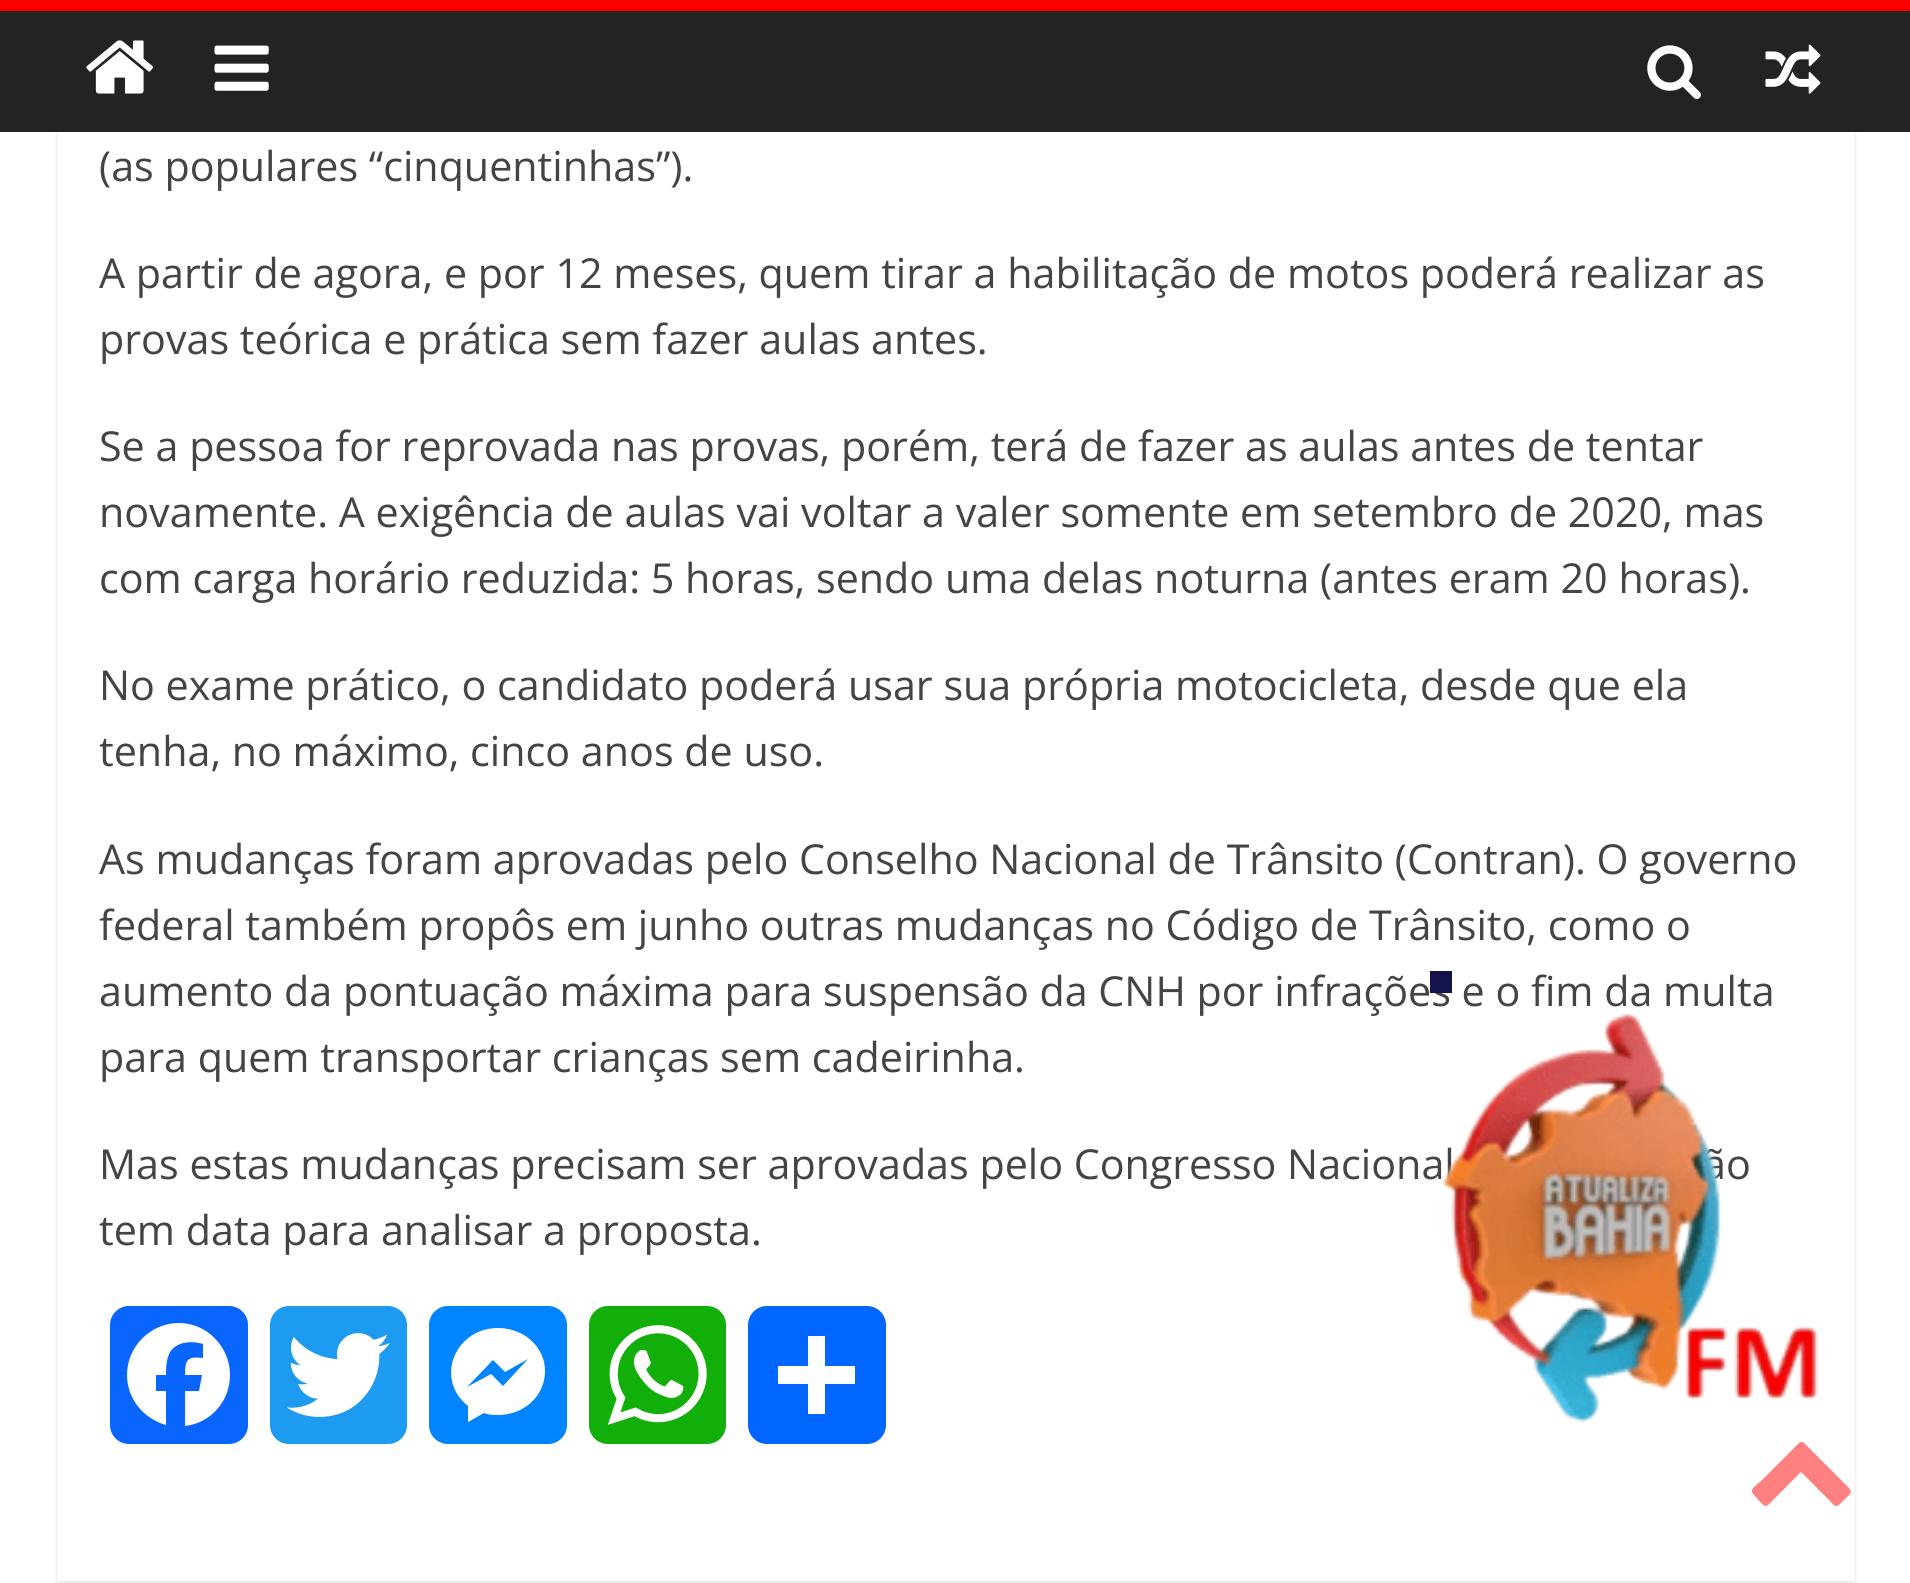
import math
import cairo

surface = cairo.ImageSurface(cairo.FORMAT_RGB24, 1910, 1583)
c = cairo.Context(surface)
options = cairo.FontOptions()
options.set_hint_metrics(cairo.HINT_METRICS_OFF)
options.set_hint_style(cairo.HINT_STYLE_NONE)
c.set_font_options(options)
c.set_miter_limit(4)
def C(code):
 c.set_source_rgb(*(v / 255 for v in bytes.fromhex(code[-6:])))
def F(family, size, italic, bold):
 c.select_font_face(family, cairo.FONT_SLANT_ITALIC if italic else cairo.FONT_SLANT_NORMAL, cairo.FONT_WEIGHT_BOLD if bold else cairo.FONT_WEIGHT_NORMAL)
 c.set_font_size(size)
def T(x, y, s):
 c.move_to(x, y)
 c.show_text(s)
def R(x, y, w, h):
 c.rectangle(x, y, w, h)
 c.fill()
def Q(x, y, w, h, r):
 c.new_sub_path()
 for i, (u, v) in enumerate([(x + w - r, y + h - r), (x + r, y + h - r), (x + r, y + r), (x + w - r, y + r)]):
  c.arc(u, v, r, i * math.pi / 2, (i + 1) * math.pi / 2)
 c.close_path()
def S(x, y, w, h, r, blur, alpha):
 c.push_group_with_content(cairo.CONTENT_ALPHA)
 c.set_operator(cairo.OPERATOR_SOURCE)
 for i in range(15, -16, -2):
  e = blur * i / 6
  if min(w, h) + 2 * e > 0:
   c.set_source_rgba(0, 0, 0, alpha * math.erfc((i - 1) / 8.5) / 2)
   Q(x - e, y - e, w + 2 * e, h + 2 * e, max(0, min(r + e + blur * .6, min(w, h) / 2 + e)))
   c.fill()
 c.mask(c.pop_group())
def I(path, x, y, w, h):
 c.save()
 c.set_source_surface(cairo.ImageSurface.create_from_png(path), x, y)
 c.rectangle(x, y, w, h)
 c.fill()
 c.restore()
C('ffffff')
c.paint()
c.save()
c.set_fill_rule(cairo.FILL_RULE_EVEN_ODD)
c.new_path()
c.move_to(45,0)
c.line_to(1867,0)
c.line_to(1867,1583)
c.line_to(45,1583)
c.close_path()
c.move_to(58,-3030)
c.line_to(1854,-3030)
c.line_to(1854,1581)
c.line_to(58,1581)
c.close_path()
c.clip()
C('000000')
S(58,-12,1796,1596,0,4,.1)
c.restore()
C('232323')
R(0,11,1910,121)
C('fc0000')
R(0,0,1910,11)
I('1.png',86,40,68,54)
I('2.png',214,45,55,46)
I('3.png',1647,45,54,54)
I('4.png',1765,44,56,50)
F('Open Sans',41.25,0,0)
C('444444')
T(99,181,'(as populares “cinquentinhas”).')
T(99,288,'A partir de agora, e por 12 meses, quem tirar a habilitação de motos poderá realizar as')
T(99,354,'provas teórica e prática sem fazer aulas antes.')
T(99,461,'Se a pessoa for reprovada nas provas, porém, terá de fazer as aulas antes de tentar')
T(99,527,'novamente. A exigência de aulas vai voltar a valer somente em setembro de 2020, mas')
T(99,593,'com carga horário reduzida: 5 horas, sendo uma delas noturna (antes eram 20 horas).')
T(99,700,'No exame prático, o candidato poderá usar sua própria motocicleta, desde que ela')
T(99,766,'tenha, no máximo, cinco anos de uso.')
T(99,874,'As mudanças foram aprovadas pelo Conselho Nacional de Trânsito (Contran). O governo')
T(99,940,'federal também propôs em junho outras mudanças no Código de Trânsito, como o')
T(99,1006,'aumento da pontuação máxima para suspensão da CNH por infrações e o fim da multa')
T(99,1072,'para quem transportar crianças sem cadeirinha.')
T(99,1179,'Mas estas mudanças precisam ser aprovadas pelo Congresso Nacional')
T(1703,1179,'ão')
T(99,1245,'tem data para analisar a proposta.')
C('0866ff')
Q(110,1306,138,138,19)
c.fill()
C('ffffff')
c.new_path()
c.move_to(230,1375)
c.curve_to(230,1347,207,1323,179,1323)
c.curve_to(150,1323,127,1347,127,1375)
c.curve_to(127,1399,144,1419,166,1425)
c.line_to(166,1391)
c.line_to(156,1391)
c.line_to(156,1375)
c.line_to(166,1375)
c.curve_to(166,1369,166,1363,168,1357)
c.curve_to(172,1342,190,1340,203,1344)
c.line_to(203,1358)
c.curve_to(187,1356,185,1360,185,1375)
c.line_to(202,1375)
c.line_to(199,1391)
c.line_to(185,1391)
c.line_to(185,1426)
c.curve_to(211,1423,230,1401,230,1375)
c.fill()
C('1d9bf0')
Q(270,1306,137,138,19)
c.fill()
I('5.png',287,1333,103,84)
C('0084ff')
Q(429,1306,138,138,19)
c.fill()
C('ffffff')
c.new_path()
c.move_to(498,1328)
c.curve_to(455,1328,434,1379,468,1406)
c.line_to(468,1422)
c.line_to(484,1413)
c.curve_to(489,1415,493,1415,498,1415)
c.curve_to(524,1415,545,1396,545,1371)
c.curve_to(545,1347,524,1328,498,1328)
c.move_to(503,1386)
c.line_to(491,1374)
c.line_to(467,1387)
c.line_to(493,1360)
c.line_to(505,1372)
c.line_to(528,1359)
c.close_path()
c.fill()
C('12af0a')
Q(589,1306,137,138,19)
c.fill()
I('6.png',607,1325,100,100)
C('0166ff')
Q(748,1306,138,138,19)
c.fill()
C('ffffff')
R(808,1336,17,78)
R(778,1366,77,18)
C('15134c')
R(1430,971,22,22)
I('7.png',1443,1012,376,411)
C('fe8080')
c.new_path()
c.move_to(1850,1494)
c.line_to(1841,1503)
c.curve_to(1835,1509,1834,1505,1828,1499)
c.line_to(1801,1472)
c.line_to(1774,1499)
c.curve_to(1764,1510,1765,1507,1755,1496)
c.curve_to(1748,1490,1754,1487,1761,1481)
c.line_to(1791,1451)
c.curve_to(1803,1439,1800,1439,1812,1451)
c.line_to(1842,1481)
c.curve_to(1843,1483,1854,1490,1850,1494)
c.close_path()
c.fill()
surface.write_to_png('o.png')
